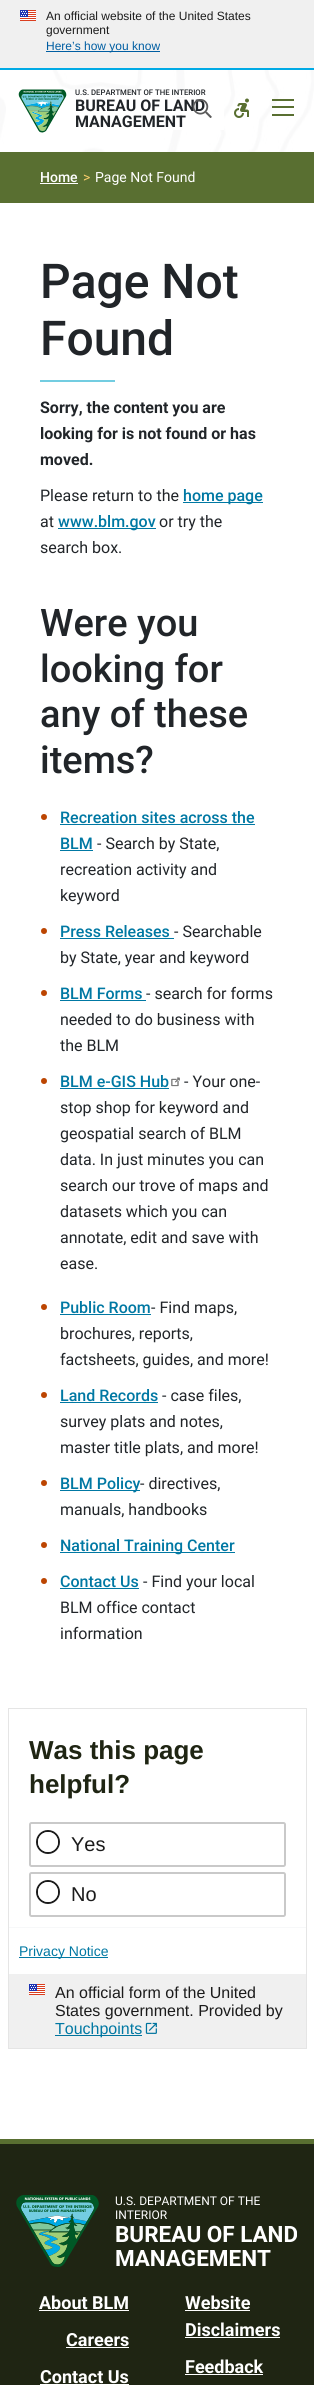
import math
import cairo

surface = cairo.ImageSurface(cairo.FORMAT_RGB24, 314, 2385)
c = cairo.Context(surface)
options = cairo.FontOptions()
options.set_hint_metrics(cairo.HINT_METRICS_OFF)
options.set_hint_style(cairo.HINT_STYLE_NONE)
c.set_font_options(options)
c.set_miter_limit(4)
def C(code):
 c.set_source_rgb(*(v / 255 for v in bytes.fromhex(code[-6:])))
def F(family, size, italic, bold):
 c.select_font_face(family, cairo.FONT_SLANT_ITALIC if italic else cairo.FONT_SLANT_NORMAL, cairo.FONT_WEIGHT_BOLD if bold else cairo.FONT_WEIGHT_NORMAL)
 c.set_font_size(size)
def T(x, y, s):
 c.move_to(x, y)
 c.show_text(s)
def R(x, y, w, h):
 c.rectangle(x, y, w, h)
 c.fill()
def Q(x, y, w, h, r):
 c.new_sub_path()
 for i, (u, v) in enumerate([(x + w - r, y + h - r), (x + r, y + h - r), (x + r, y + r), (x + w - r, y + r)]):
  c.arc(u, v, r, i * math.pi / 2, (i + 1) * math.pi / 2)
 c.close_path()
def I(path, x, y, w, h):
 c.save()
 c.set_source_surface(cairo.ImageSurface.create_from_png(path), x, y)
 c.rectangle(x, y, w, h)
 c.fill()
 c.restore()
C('ffffff')
c.paint()
C('f0f0f0')
R(0,0,314,68)
C('00aae5')
R(0,68,314,2)
I('1.png',20,10,16,11)
F('Liberation Sans',12,0,0)
C('1b1b1b')
T(46,20,'An official website of the United States')
T(46,34,'government')
C('005ea2')
R(46,51,114,1)
T(46,50,'Here’s how you know')
I('2.png',0,70,314,82)
I('3.png',18,89,49,44)
C('ffffff')
R(75,89,110,8)
F('Roboto Medium',7.75,0,0)
C('212529')
T(75,95,'U.S. DEPARTMENT OF THE INTERIOR')
C('ffffff')
R(173,98,51,32)
F('Roboto',16,0,1)
C('212529')
T(75,111,'BUREAU OF LAND')
T(75,127,'MANAGEMENT')
I('4.png',192,99,20,19)
I('5.png',234,98,15,20)
C('596f31')
R(272,99,22,2)
R(272,106,22,2)
R(272,114,22,2)
R(0,152,314,51)
F('Roboto Medium',14,0,0)
C('ffffff')
T(40,182,'Home')
R(40,183,38,1)
F('Roboto',14,0,0)
C('f8cc6b')
T(83,182,'>')
C('ffffff')
T(95,182,'Page Not Found')
F('Roboto Medium',48,0,0)
C('212529')
T(40,298,'Page Not')
T(40,355,'Found')
C('73cde1')
R(40,380,75,2)
F('Roboto',16,0,1)
C('212529')
T(40,413,'Sorry, the content you are')
T(40,439,'looking for is not found or has')
T(40,465,'moved.')
F('Roboto',16,0,0)
T(40,501,'Please return to the')
C('0078a3')
R(183,502,80,1)
F('Roboto Medium',16,0,0)
T(183,501,'home page')
F('Roboto',16,0,0)
C('212529')
T(40,527,'at')
C('0078a3')
R(58,528,98,1)
F('Roboto Medium',16,0,0)
T(58,527,'www.blm.gov')
F('Roboto',16,0,0)
C('212529')
T(159,527,'or try the')
T(40,553,'search box.')
F('Roboto Medium',38,0,0)
T(40,636,'Were you')
T(40,682,'looking for')
T(40,727,'any of these')
T(40,773,'items?')
C('bc4501')
c.new_path()
c.arc(44,817,3,0,2 * math.pi)
c.fill()
F('Roboto Medium',16,0,0)
C('0078a3')
T(60,823,'Recreation sites across the')
R(60,824,195,1)
T(60,849,'BLM')
R(60,850,33,1)
F('Roboto',16,0,0)
C('212529')
T(97,849,'- Search by State,')
T(60,875,'recreation activity and')
T(60,901,'keyword')
C('bc4501')
c.new_path()
c.arc(44,931,3,0,2 * math.pi)
c.fill()
F('Roboto Medium',16,0,0)
C('0078a3')
T(60,937,'Press Releases')
R(60,938,114,1)
F('Roboto',16,0,0)
C('212529')
T(174,937,'- Searchable')
T(60,963,'by State, year and keyword')
C('bc4501')
c.new_path()
c.arc(44,993,3,0,2 * math.pi)
c.fill()
F('Roboto Medium',16,0,0)
C('0078a3')
T(60,999,'BLM Forms')
R(60,1000,86,1)
F('Roboto',16,0,0)
C('212529')
T(146,999,'- search for forms')
T(60,1025,'needed to do business with')
T(60,1051,'the BLM')
C('bc4501')
c.new_path()
c.arc(44,1081,3,0,2 * math.pi)
c.fill()
F('Roboto Medium',16,0,0)
C('0078a3')
T(60,1087,'BLM e-GIS Hub')
R(60,1088,109,1)
I('6.png',171,1077,9,10)
F('Roboto',16,0,0)
C('212529')
T(184,1087,'- Your one-')
T(60,1113,'stop shop for keyword and')
T(60,1139,'geospatial search of BLM')
T(60,1165,'data. In just minutes you can')
T(60,1191,'search our trove of maps and')
T(60,1217,'datasets which you can')
T(60,1243,'annotate, edit and save with')
T(60,1269,'ease.')
C('bc4501')
c.new_path()
c.arc(44,1307,3,0,2 * math.pi)
c.fill()
F('Roboto Medium',16,0,0)
C('0078a3')
T(60,1313,'Public Room')
R(60,1314,91,1)
F('Roboto',16,0,0)
C('212529')
T(151,1313,'- Find maps,')
T(60,1339,'brochures, reports,')
T(60,1365,'factsheets, guides, and more!')
C('bc4501')
c.new_path()
c.arc(44,1395,3,0,2 * math.pi)
c.fill()
F('Roboto Medium',16,0,0)
C('0078a3')
T(60,1401,'Land Records')
R(60,1402,98,1)
F('Roboto',16,0,0)
C('212529')
T(162,1401,'- case files,')
T(60,1427,'survey plats and notes,')
T(60,1453,'master title plats, and more!')
C('bc4501')
c.new_path()
c.arc(44,1483,3,0,2 * math.pi)
c.fill()
C('0078a3')
R(60,1490,80,1)
F('Roboto Medium',16,0,0)
T(60,1489,'BLM Policy')
F('Roboto',16,0,0)
C('212529')
T(140,1489,'- directives,')
T(60,1515,'manuals, handbooks')
C('bc4501')
c.new_path()
c.arc(44,1545,3,0,2 * math.pi)
c.fill()
C('0078a3')
R(60,1552,175,1)
F('Roboto Medium',16,0,0)
T(60,1551,'National Training Center')
C('bc4501')
c.new_path()
c.arc(44,1581,3,0,2 * math.pi)
c.fill()
C('0078a3')
T(60,1587,'Contact Us')
R(60,1588,79,1)
F('Roboto',16,0,0)
C('212529')
T(143,1587,'- Find your local')
T(60,1613,'BLM office contact')
T(60,1639,'information')
c.rectangle(8.5,1708.5,298,340)
C('e5e5e5')
c.set_line_width(1)
c.stroke()
F('Liberation Sans',26,0,1)
C('1f2513')
T(29,1759,'Was this page')
T(29,1793,'helpful?')
Q(30,1823,255,43,1.5)
C('c9c9c9')
c.set_line_width(2)
c.stroke()
c.arc(48,1842,11,0,2 * math.pi)
C('1b1b1b')
c.stroke()
C('ffffff')
c.arc(48,1842,10,0,2 * math.pi)
c.fill()
F('Liberation Sans',20,0,0)
C('1b1b1b')
T(71,1851,'Yes')
Q(30,1873,255,43,1.5)
C('c9c9c9')
c.stroke()
c.arc(48,1892,11,0,2 * math.pi)
C('1b1b1b')
c.stroke()
C('ffffff')
c.arc(48,1892,10,0,2 * math.pi)
c.fill()
C('1b1b1b')
T(71,1901,'No')
C('f7f8f9')
R(9,1927,297,1)
C('0078a3')
R(19,1957,89,1)
F('Liberation Sans',14,0,0)
T(19,1956,'Privacy Notice')
C('f0f0f0')
R(9,1974,297,74)
I('1.png',29,1984,16,11)
F('Liberation Sans',16,0,0)
C('1b1b1b')
T(55,1998,'An official form of the United')
T(55,2016,'States government. Provided by')
C('00749e')
R(55,2035,87,1)
C('0078a3')
T(55,2034,'Touchpoints')
I('7.png',145,2022,12,12)
C('1f2513')
R(0,2144,314,241)
C('596f31')
R(0,2139,314,5)
I('8.png',16,2195,83,72)
F('Roboto',12,0,0)
C('ffffff')
T(115,2205,'U.S. DEPARTMENT OF THE')
T(115,2219,'INTERIOR')
F('Roboto',22.5,0,1)
T(115,2242,'BUREAU OF LAND')
T(115,2266,'MANAGEMENT')
F('Roboto',18,0,1)
T(39,2309,'About BLM')
R(39,2310,90,1)
T(185,2309,'Website')
R(185,2310,65,1)
T(185,2336,'Disclaimers')
R(185,2337,95,1)
T(66,2346,'Careers')
R(66,2347,63,1)
T(185,2373,'Feedback')
R(185,2374,78,1)
T(40,2383,'Contact Us')
R(40,2384,89,1)
surface.write_to_png('o.png')
